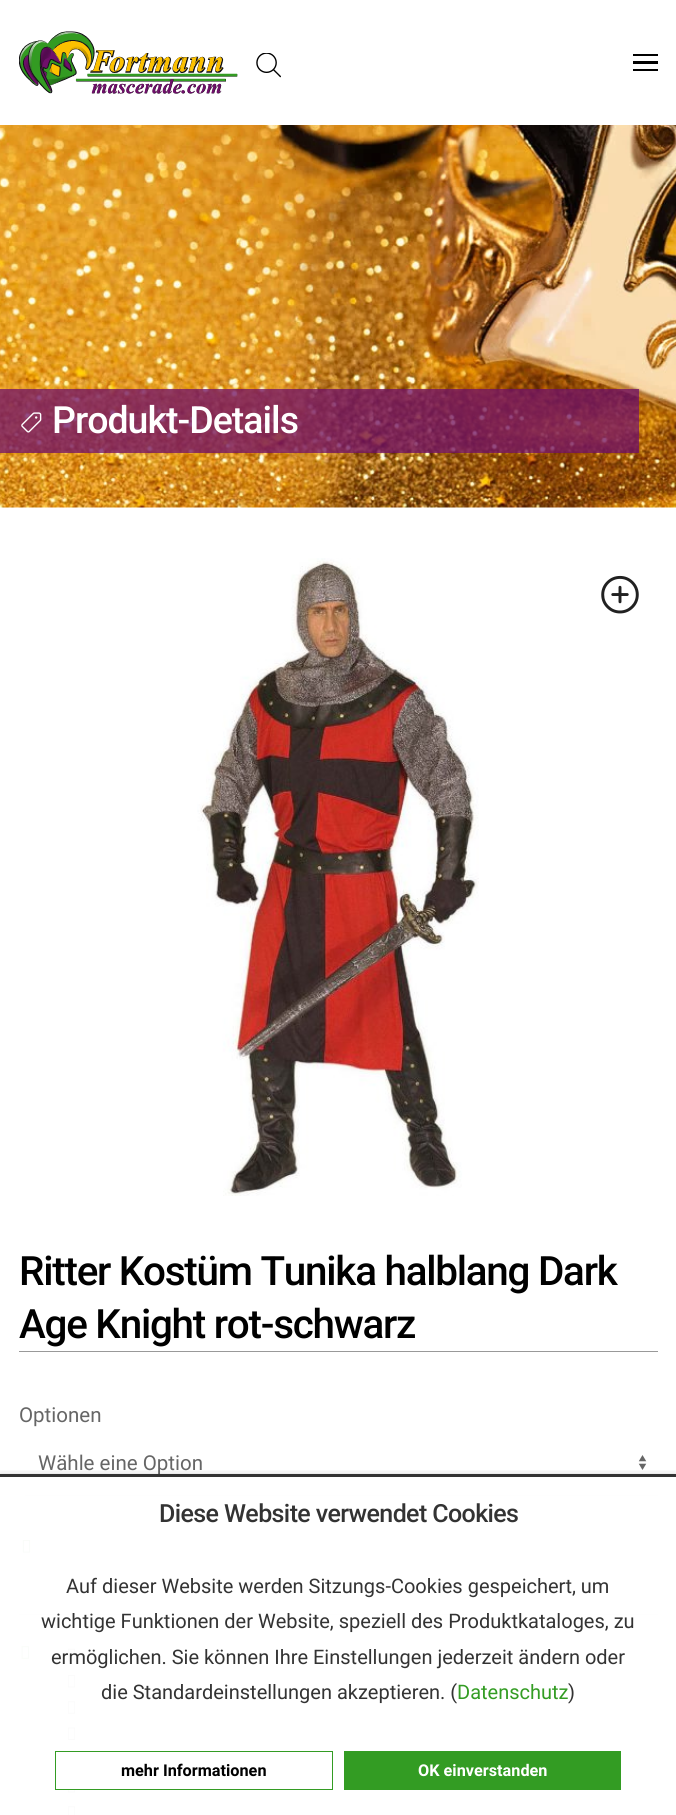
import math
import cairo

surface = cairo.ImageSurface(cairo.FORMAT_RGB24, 676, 1815)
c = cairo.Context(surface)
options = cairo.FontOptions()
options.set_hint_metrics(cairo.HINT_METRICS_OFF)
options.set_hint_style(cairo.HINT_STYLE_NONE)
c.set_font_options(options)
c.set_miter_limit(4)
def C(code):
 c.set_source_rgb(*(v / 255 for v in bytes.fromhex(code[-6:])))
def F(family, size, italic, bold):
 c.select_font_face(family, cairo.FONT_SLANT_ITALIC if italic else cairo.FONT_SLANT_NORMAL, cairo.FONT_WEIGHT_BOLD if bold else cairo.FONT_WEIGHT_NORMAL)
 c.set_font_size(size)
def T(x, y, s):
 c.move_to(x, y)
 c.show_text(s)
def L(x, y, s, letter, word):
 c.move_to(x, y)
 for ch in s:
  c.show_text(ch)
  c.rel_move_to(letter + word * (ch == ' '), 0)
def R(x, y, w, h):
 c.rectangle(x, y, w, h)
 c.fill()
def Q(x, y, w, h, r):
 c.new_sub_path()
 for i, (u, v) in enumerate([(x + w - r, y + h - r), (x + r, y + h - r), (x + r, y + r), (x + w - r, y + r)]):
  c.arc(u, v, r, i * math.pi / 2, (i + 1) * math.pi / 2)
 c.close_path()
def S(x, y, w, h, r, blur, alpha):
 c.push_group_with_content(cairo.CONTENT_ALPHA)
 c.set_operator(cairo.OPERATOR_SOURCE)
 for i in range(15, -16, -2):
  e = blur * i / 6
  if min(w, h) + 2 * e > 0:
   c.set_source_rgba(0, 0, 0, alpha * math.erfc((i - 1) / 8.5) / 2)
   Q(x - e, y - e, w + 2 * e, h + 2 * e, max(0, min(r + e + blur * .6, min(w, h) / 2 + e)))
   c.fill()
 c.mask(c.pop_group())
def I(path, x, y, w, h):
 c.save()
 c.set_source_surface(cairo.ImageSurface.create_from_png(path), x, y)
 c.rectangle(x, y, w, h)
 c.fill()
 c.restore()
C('ffffff')
c.paint()
I('1.png',19,31,219,63)
I('2.png',256,53,25,25)
C('000000')
R(633,54,25,2)
R(633,61,25,3)
R(633,69,25,2)
I('3.png',0,125,676,383)
c.set_source_rgba(0.435,0.059,0.416,0.75)
R(0,389,639,64)
I('4.png',21,412,21,21)
F('Roboto Medium',37.5,0,0)
C('ffffff')
L(52,433,'Produkt-Details',-1,0)
I('5.png',197,558,282,638)
I('6.png',601,575,38,39)
F('Roboto Medium',40.4,0,0)
C('000000')
L(19,1285,'Ritter Kostüm Tunika halblang Dark',-1.25,0)
L(19,1338,'Age Knight rot-schwarz',-1.25,0)
C('999999')
R(19,1351,639,1)
F('Roboto',20.5,0,0)
C('666666')
T(19,1422,'Optionen')
I('7.png',638,1455,9,15)
C('e5e5e5')
R(25,1495,633,1)
C('666666')
T(38,1470,'Wähle eine Option')
I('8.png',22,1540,9,13)
C('e5e5e5')
R(19,1614,639,1)
I('9.png',21,1646,8,13)
I('10.png',67,1648,9,14)
I('11.png',67,1675,9,13)
I('12.png',67,1701,9,13)
I('13.png',67,1727,9,13)
I('14.png',67,1790,9,3)
I('15.png',67,1806,9,9)
c.save()
c.rectangle(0,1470,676,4)
c.clip()
C('000000')
S(0,1480,676,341,0,6,.5)
c.restore()
c.set_source_rgba(1,1,1,0.97)
R(19,1495,639,320)
C('333333')
R(0,1474,676,3)
F('Roboto Medium',25,0,0)
L(159,1522,'Diese Website verwendet Cookies',-.6,0)
F('Roboto',20,0,0)
T(66,1593,'Auf dieser Website werden Sitzungs-Cookies gespeichert, um')
T(41,1628,'wichtige Funktionen der Website, speziell des Produktkataloges, zu')
T(51,1664,'ermöglichen. Sie können Ihre Einstellungen jederzeit ändern oder')
T(101,1699,'die Standardeinstellungen akzeptieren. (')
C('339c23')
T(457,1699,'Datenschutz')
C('333333')
T(568,1699,')')
c.rectangle(55.5,1751.5,277,38)
C('339c23')
c.set_line_width(1)
c.stroke()
F('Roboto',16.25,0,1)
C('000000')
T(121,1776,'mehr Informationen')
C('339c23')
R(344,1751,277,39)
C('ffffff')
T(418,1776,'OK einverstanden')
surface.write_to_png('o.png')
